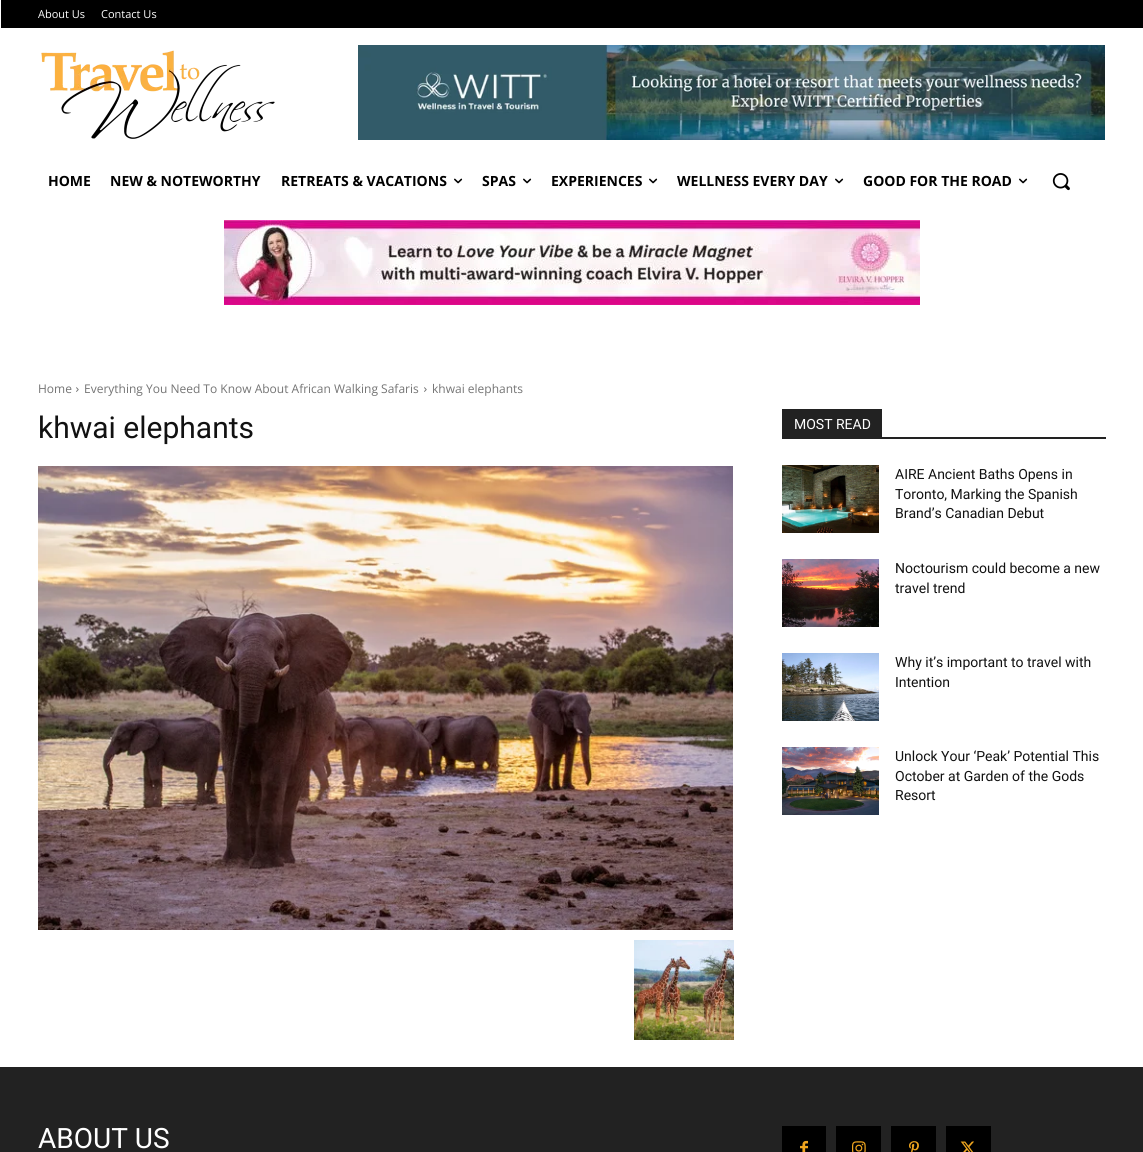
import math
import cairo

surface = cairo.ImageSurface(cairo.FORMAT_RGB24, 1143, 1152)
c = cairo.Context(surface)
options = cairo.FontOptions()
options.set_hint_metrics(cairo.HINT_METRICS_OFF)
options.set_hint_style(cairo.HINT_STYLE_NONE)
c.set_font_options(options)
c.set_miter_limit(4)
def C(code):
 c.set_source_rgb(*(v / 255 for v in bytes.fromhex(code[-6:])))
def F(family, size, italic, bold):
 c.select_font_face(family, cairo.FONT_SLANT_ITALIC if italic else cairo.FONT_SLANT_NORMAL, cairo.FONT_WEIGHT_BOLD if bold else cairo.FONT_WEIGHT_NORMAL)
 c.set_font_size(size)
def T(x, y, s):
 c.move_to(x, y)
 c.show_text(s)
def R(x, y, w, h):
 c.rectangle(x, y, w, h)
 c.fill()
def I(path, x, y, w, h):
 c.save()
 c.set_source_surface(cairo.ImageSurface.create_from_png(path), x, y)
 c.rectangle(x, y, w, h)
 c.fill()
 c.restore()
C('ffffff')
c.paint()
C('000000')
R(1,0,1142,28)
F('Open Sans',11,0,0)
C('ffffff')
T(38,18,'About Us')
T(101,18,'Contact Us')
I('1.png',41,50,234,89)
I('2.png',358,45,747,95)
F('Open Sans',14,0,1)
C('000000')
T(48,186,'HOME')
T(110,186,'NEW & NOTEWORTHY')
T(281,186,'RETREATS & VACATIONS')
I('3.png',454,178,9,6)
T(482,186,'SPAS')
I('3.png',523,178,9,6)
T(551,186,'EXPERIENCES')
I('3.png',649,178,9,6)
T(677,186,'WELLNESS EVERY DAY')
I('3.png',835,178,9,6)
T(863,186,'GOOD FOR THE ROAD')
I('3.png',1019,178,9,6)
I('4.png',1052,173,18,18)
I('5.png',224,220,696,85)
F('Open Sans',12,0,0)
C('747474')
T(38,393,'Home')
I('6.png',76,387,3,5)
T(84,393,'Everything You Need To Know About African Walking Safaris')
I('6.png',424,387,3,5)
T(432,393,'khwai elephants')
F('Roboto',30,0,0)
C('111111')
T(38,438,'khwai elephants')
I('7.png',38,466,695,464)
I('8.png',634,940,100,100)
C('222222')
R(782,437,324,2)
R(782,409,100,28)
F('Roboto',14,0,0)
C('ffffff')
T(794,429,'MOST READ')
I('9.png',782,465,97,68)
C('111111')
T(895,479,'AIRE Ancient Baths Opens in')
T(895,499,'Toronto, Marking the Spanish')
T(895,518,'Brand’s Canadian Debut')
I('10.png',782,559,97,68)
T(895,573,'Noctourism could become a new')
T(895,593,'travel trend')
I('11.png',782,653,97,68)
T(895,667,'Why it’s important to travel with')
T(895,687,'Intention')
I('12.png',782,747,97,68)
T(895,761,'Unlock Your ‘Peak’ Potential This')
T(895,781,'October at Garden of the Gods')
T(895,800,'Resort')
C('222222')
R(0,1067,1143,85)
F('Roboto',28,0,0)
C('ffffff')
T(38,1148,'ABOUT US')
C('000000')
R(782,1126,44,26)
I('13.png',800,1140,8,12)
R(836,1126,45,26)
I('14.png',852,1141,14,11)
R(891,1126,45,26)
I('15.png',909,1141,10,11)
R(946,1126,45,26)
I('16.png',960,1141,14,11)
surface.write_to_png('o.png')
